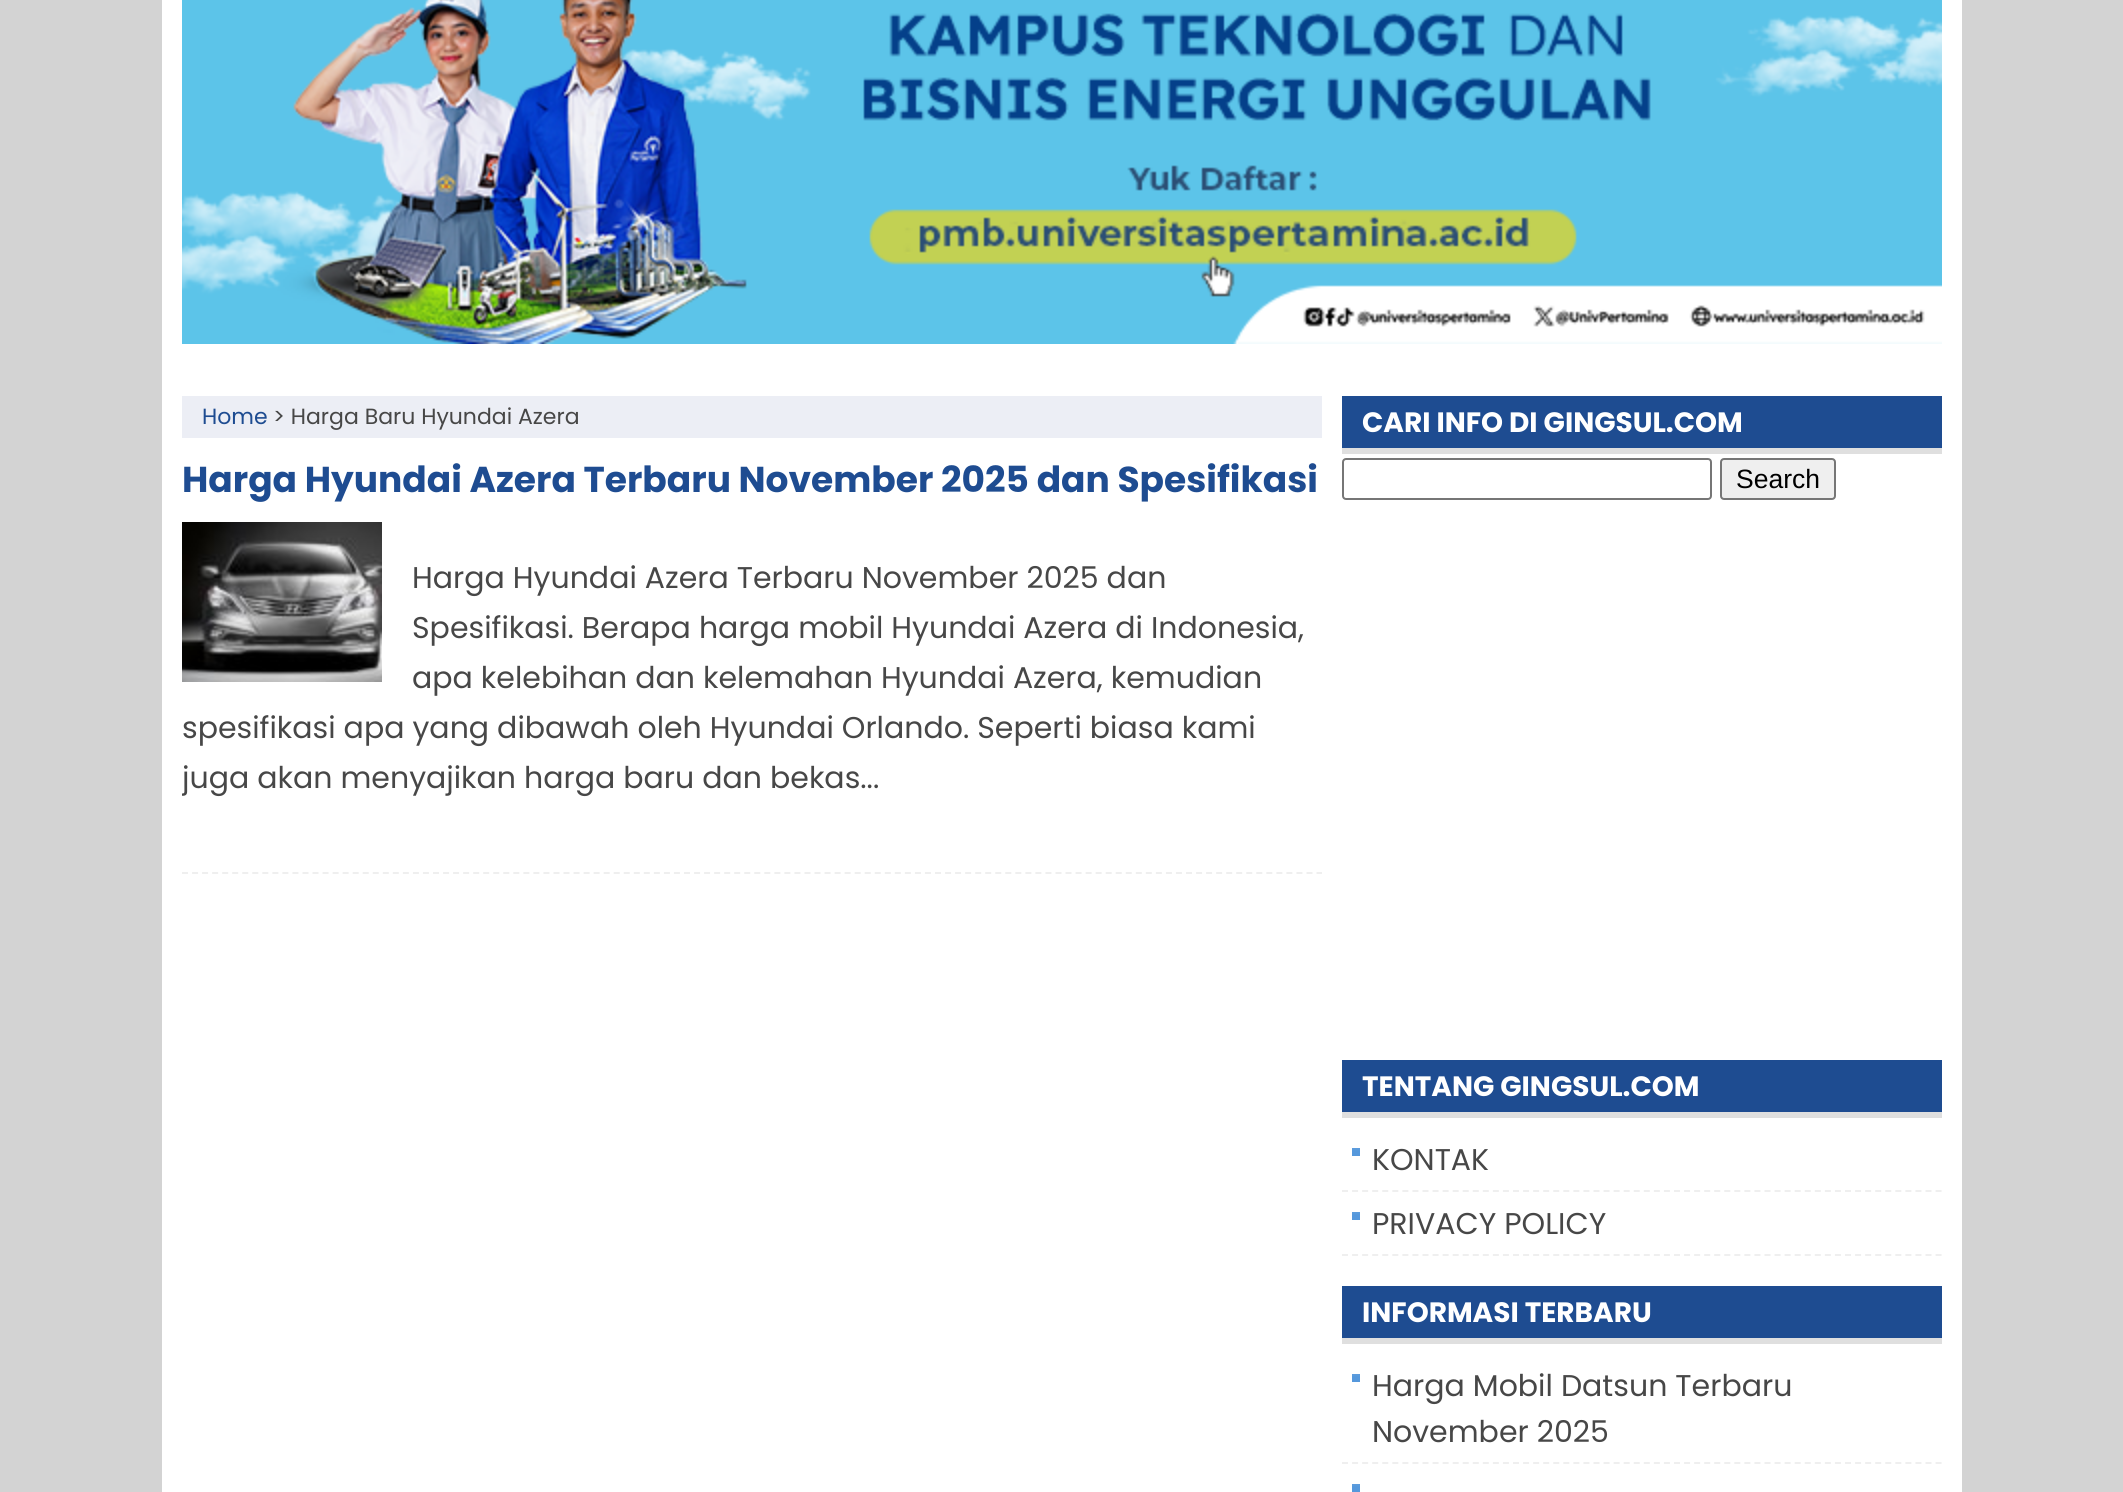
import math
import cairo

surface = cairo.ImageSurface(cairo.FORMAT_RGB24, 2123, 1492)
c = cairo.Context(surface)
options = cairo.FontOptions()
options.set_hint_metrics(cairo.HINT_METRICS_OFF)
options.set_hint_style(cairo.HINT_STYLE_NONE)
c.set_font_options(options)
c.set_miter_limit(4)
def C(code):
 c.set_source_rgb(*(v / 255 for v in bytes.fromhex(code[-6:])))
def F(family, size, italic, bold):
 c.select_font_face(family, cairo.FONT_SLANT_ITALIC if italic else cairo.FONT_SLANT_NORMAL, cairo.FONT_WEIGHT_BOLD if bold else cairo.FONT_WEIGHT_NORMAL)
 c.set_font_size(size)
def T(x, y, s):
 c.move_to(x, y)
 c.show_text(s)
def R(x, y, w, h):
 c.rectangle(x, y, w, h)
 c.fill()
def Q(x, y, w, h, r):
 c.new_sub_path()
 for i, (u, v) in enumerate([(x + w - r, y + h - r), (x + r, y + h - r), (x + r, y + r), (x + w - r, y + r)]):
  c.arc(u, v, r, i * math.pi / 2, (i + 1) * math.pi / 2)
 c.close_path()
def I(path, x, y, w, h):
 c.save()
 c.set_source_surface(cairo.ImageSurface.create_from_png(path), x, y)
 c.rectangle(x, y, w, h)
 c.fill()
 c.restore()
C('d3d3d3')
c.paint()
C('ffffff')
R(162,0,1800,1492)
I('1.png',182,0,1760,344)
C('eceef5')
R(182,396,1140,42)
F('Poppins',22,0,0)
C('1e4c91')
T(202,424,'Home')
C('474747')
T(273,424,'> Harga Baru Hyundai Azera')
c.new_path()
c.move_to(182,873)
c.line_to(1322,873)
C('efefef')
c.set_dash([6,4.04])
c.stroke()
F('Poppins',36,0,1)
C('1e4c91')
T(182,492,'Harga Hyundai Azera Terbaru November 2025 dan Spesifikasi')
I('2.png',182,522,200,160)
F('Poppins',30,0,0)
C('474747')
T(412,588,'Harga Hyundai Azera Terbaru November 2025 dan')
T(412,638,'Spesifikasi. Berapa harga mobil Hyundai Azera di Indonesia,')
T(412,688,'apa kelebihan dan kelemahan Hyundai Azera, kemudian')
T(182,738,'spesifikasi apa yang dibawah oleh Hyundai Orlando. Seperti biasa kami')
c.save()
c.rectangle(182,438,1140,434)
c.clip()
T(182,788,'juga akan menyajikan harga baru dan bekas...')
c.restore()
C('1e4c91')
R(1342,396,600,52)
C('dfdfdf')
R(1342,448,600,6)
F('Poppins',28,0,1)
C('ffffff')
T(1362,432,'CARI INFO DI GINGSUL.COM')
Q(1343,459,368,40,3)
C('767676')
c.set_dash([])
c.stroke()
C('efefef')
Q(1721,459,114,40,3)
c.fill_preserve()
C('767676')
c.stroke()
F('Liberation Sans',26.5,0,0)
C('000000')
T(1736,488,'Search')
C('1e4c91')
R(1342,1060,600,52)
C('dfdfdf')
R(1342,1112,600,6)
F('Poppins',28,0,1)
C('ffffff')
T(1362,1096,'TENTANG GINGSUL.COM')
I('3.png',1352,1148,8,8)
c.new_path()
c.move_to(1342,1191)
c.line_to(1942,1191)
C('efefef')
c.set_dash([6,4.06])
c.stroke()
F('Poppins',30,0,0)
C('474747')
T(1372,1170,'KONTAK')
I('3.png',1352,1212,8,8)
c.new_path()
c.move_to(1342,1255)
c.line_to(1942,1255)
C('efefef')
c.stroke()
C('474747')
T(1372,1234,'PRIVACY POLICY')
C('1e4c91')
R(1342,1286,600,52)
C('dfdfdf')
R(1342,1338,600,6)
F('Poppins',28,0,1)
C('ffffff')
T(1362,1322,'INFORMASI TERBARU')
I('3.png',1352,1374,8,8)
c.new_path()
c.move_to(1342,1463)
c.line_to(1942,1463)
C('efefef')
c.stroke()
F('Poppins',30,0,0)
C('474747')
T(1372,1396,'Harga Mobil Datsun Terbaru')
T(1372,1442,'November 2025')
I('3.png',1352,1484,8,8)
surface.write_to_png('o.png')
